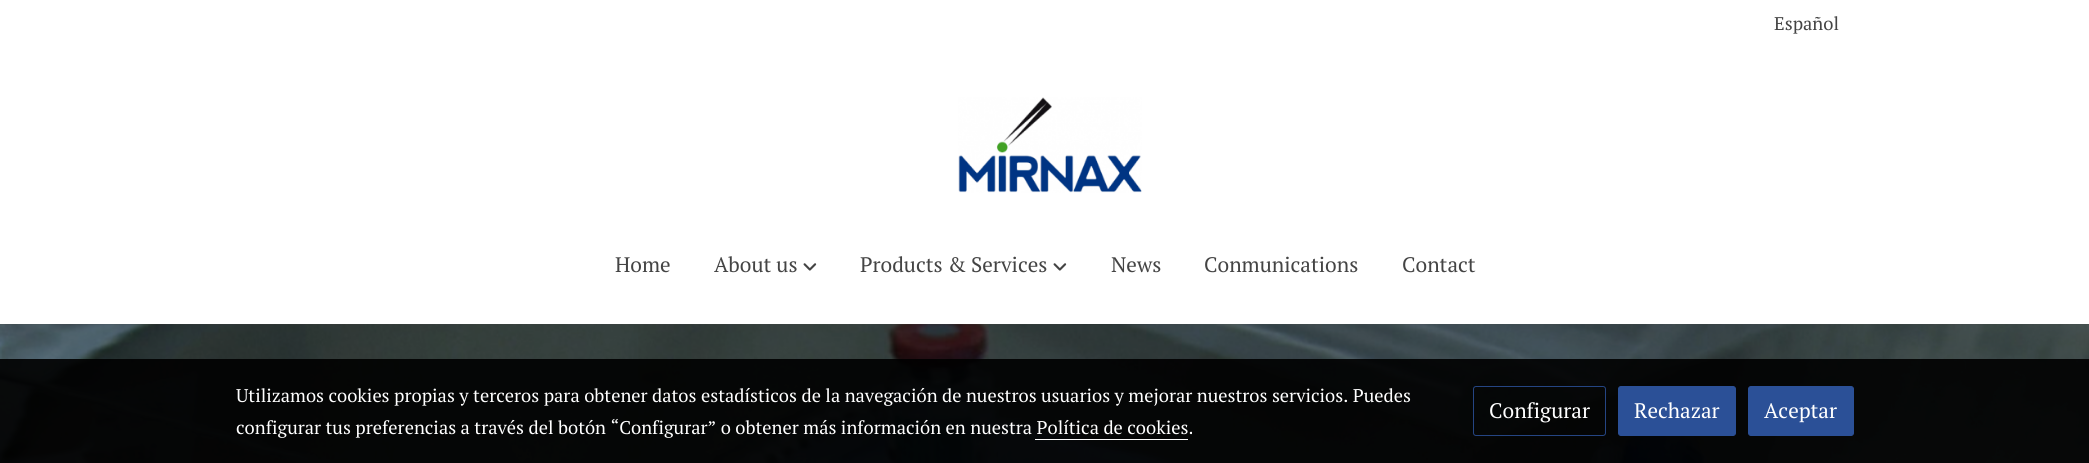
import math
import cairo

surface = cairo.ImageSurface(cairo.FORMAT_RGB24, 2089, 463)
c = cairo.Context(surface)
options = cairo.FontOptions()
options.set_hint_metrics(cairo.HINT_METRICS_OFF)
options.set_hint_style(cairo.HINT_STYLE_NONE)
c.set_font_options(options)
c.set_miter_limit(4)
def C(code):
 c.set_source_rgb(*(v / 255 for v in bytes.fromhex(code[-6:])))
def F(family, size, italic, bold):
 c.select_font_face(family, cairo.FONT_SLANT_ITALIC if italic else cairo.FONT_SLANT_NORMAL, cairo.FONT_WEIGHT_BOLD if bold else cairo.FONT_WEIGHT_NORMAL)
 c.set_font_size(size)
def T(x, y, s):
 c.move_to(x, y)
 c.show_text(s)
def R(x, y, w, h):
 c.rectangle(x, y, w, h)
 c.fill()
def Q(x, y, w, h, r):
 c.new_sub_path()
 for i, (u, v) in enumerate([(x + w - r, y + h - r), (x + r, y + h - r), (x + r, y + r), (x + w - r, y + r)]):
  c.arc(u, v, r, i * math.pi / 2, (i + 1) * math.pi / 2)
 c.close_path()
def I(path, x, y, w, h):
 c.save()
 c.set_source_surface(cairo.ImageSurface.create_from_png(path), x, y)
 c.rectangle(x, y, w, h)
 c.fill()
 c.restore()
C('ffffff')
c.paint()
F('PT Serif',18.38,0,0)
C('444444')
T(1774,30,'Español')
I('1.png',958,97,184,96)
F('PT Serif',21,0,0)
T(615,272,'Home')
T(714,272,'About us')
I('2.png',803,263,14,8)
T(860,272,'Products & Services')
I('2.png',1053,263,14,8)
T(1111,272,'News')
T(1204,272,'Conmunications')
T(1402,272,'Contact')
I('3.png',0,324,2089,1)
I('4.png',0,324,2089,139)
c.set_source_rgba(0,0,0,0.9)
R(0,359,2089,104)
F('PT Serif',18.38,0,0)
C('ffffff')
T(236,402,'Utilizamos cookies propias y terceros para obtener datos estadísticos de la navegación de nuestros usuarios y mejorar nuestros servicios. Puedes')
T(236,434,'configurar tus preferencias a través del botón “Configurar” o obtener más información en nuestra Política de cookies.')
R(1035,439,153,1)
Q(1473.5,386.5,132,49,2.5)
C('254583')
c.set_line_width(1)
c.stroke()
F('PT Serif',21,0,0)
C('ffffff')
T(1489,418,'Configurar')
C('2b5097')
Q(1618.5,386.5,117,49,2.5)
c.fill_preserve()
c.stroke()
C('ffffff')
T(1634,418,'Rechazar')
C('2b5097')
Q(1748.5,386.5,105,49,2.5)
c.fill_preserve()
c.stroke()
C('ffffff')
T(1764,418,'Aceptar')
surface.write_to_png('o.png')
